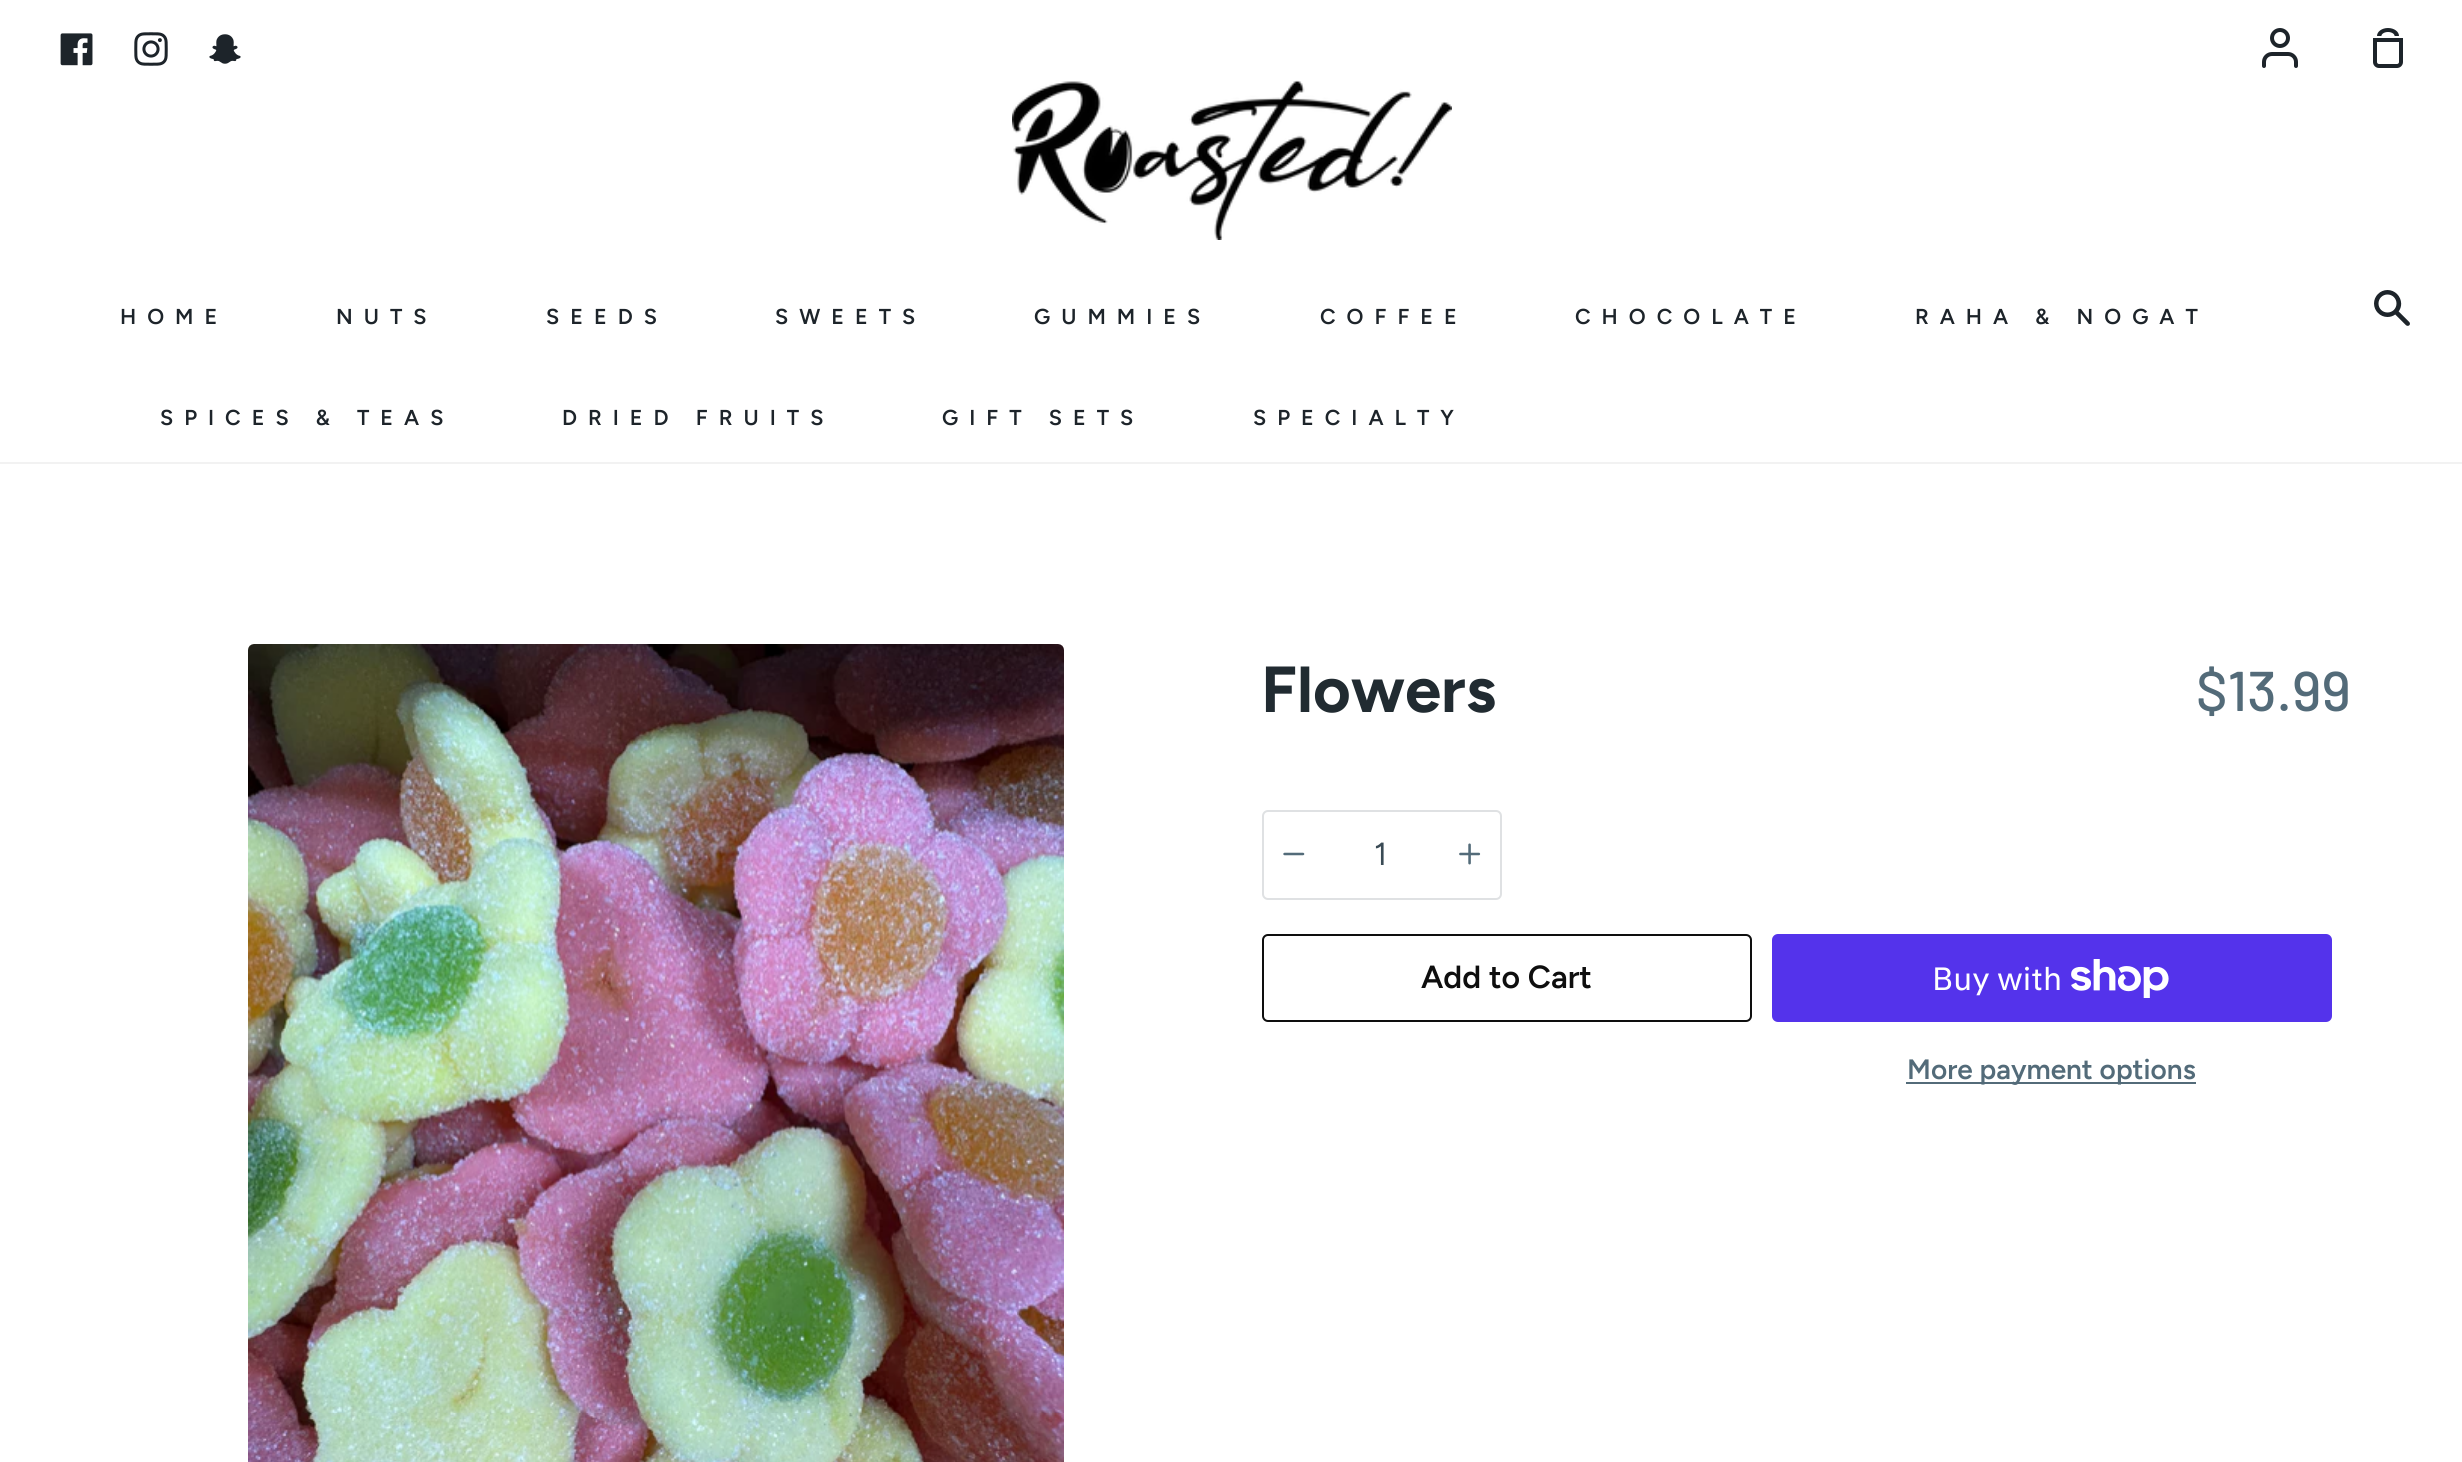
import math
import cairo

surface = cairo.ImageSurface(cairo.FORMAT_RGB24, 2462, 1462)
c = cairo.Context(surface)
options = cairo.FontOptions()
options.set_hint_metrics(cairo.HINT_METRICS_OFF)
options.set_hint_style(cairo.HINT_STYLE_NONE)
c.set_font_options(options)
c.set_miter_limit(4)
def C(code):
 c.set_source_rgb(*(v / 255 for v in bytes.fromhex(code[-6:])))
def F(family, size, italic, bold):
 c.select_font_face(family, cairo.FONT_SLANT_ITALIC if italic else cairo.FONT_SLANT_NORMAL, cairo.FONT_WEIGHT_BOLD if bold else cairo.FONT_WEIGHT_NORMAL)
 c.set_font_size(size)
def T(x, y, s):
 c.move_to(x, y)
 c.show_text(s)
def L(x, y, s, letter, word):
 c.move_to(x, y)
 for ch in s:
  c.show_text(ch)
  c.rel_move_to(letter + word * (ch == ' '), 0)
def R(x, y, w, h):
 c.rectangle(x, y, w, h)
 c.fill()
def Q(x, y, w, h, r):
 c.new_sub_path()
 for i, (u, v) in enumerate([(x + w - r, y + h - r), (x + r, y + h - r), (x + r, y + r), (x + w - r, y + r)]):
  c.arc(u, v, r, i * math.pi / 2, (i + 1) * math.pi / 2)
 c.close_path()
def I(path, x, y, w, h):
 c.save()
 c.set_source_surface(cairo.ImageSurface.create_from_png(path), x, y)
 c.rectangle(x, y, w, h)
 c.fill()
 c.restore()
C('ffffff')
c.paint()
C('f2f2f2')
R(0,462,2462,2)
I('1.png',60,33,33,33)
I('2.png',134,32,34,34)
I('3.png',209,34,32,30)
I('4.png',2262,28,36,40)
I('5.png',2373,28,30,40)
I('6.png',1012,80,440,160)
F('Figtree SemiBold',21.6,0,0)
C('1d242a')
L(120,324,'HOME',11,0)
L(336,324,'NUTS',11,0)
L(546,324,'SEEDS',11,0)
L(775,324,'SWEETS',11,0)
L(1034,324,'GUMMIES',11,0)
L(1320,324,'COFFEE',11,0)
L(1575,324,'CHOCOLATE',11,0)
L(1915,324,'RAHA & NOGAT',11,0)
L(160,425,'SPICES & TEAS',11,0)
L(562,425,'DRIED FRUITS',11,0)
L(942,425,'GIFT SETS',11,0)
L(1253,425,'SPECIALTY',11,0)
I('7.png',2374,290,36,36)
I('8.png',248,644,816,818)
F('Figtree',65,0,1)
C('212b31')
T(1261,712,'Flowers')
F('Barlow Medium',56,0,0)
C('536b79')
T(2196,711,'$13.99')
Q(1263,811,238,88,5)
C('dfe1e3')
c.stroke()
I('9.png',1283,852,22,4)
F('Figtree',32,0,0)
C('3a4b55')
T(1374,865,'1')
I('10.png',1459,843,22,22)
Q(1263,935,488,86,5)
C('0e0e0e')
c.stroke()
F('Figtree SemiBold',32,0,0)
T(1421,988,'Add to Cart')
C('5433eb')
Q(1772,934,560,88,6)
c.fill()
F('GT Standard',32,0,0)
C('ffffff')
T(1932,990,'Buy with')
I('11.png',2071,959,98,39)
C('536b79')
R(1906,1082,290,2)
F('Figtree SemiBold',28,0,0)
T(1907,1079,'More payment options')
surface.write_to_png('o.png')
